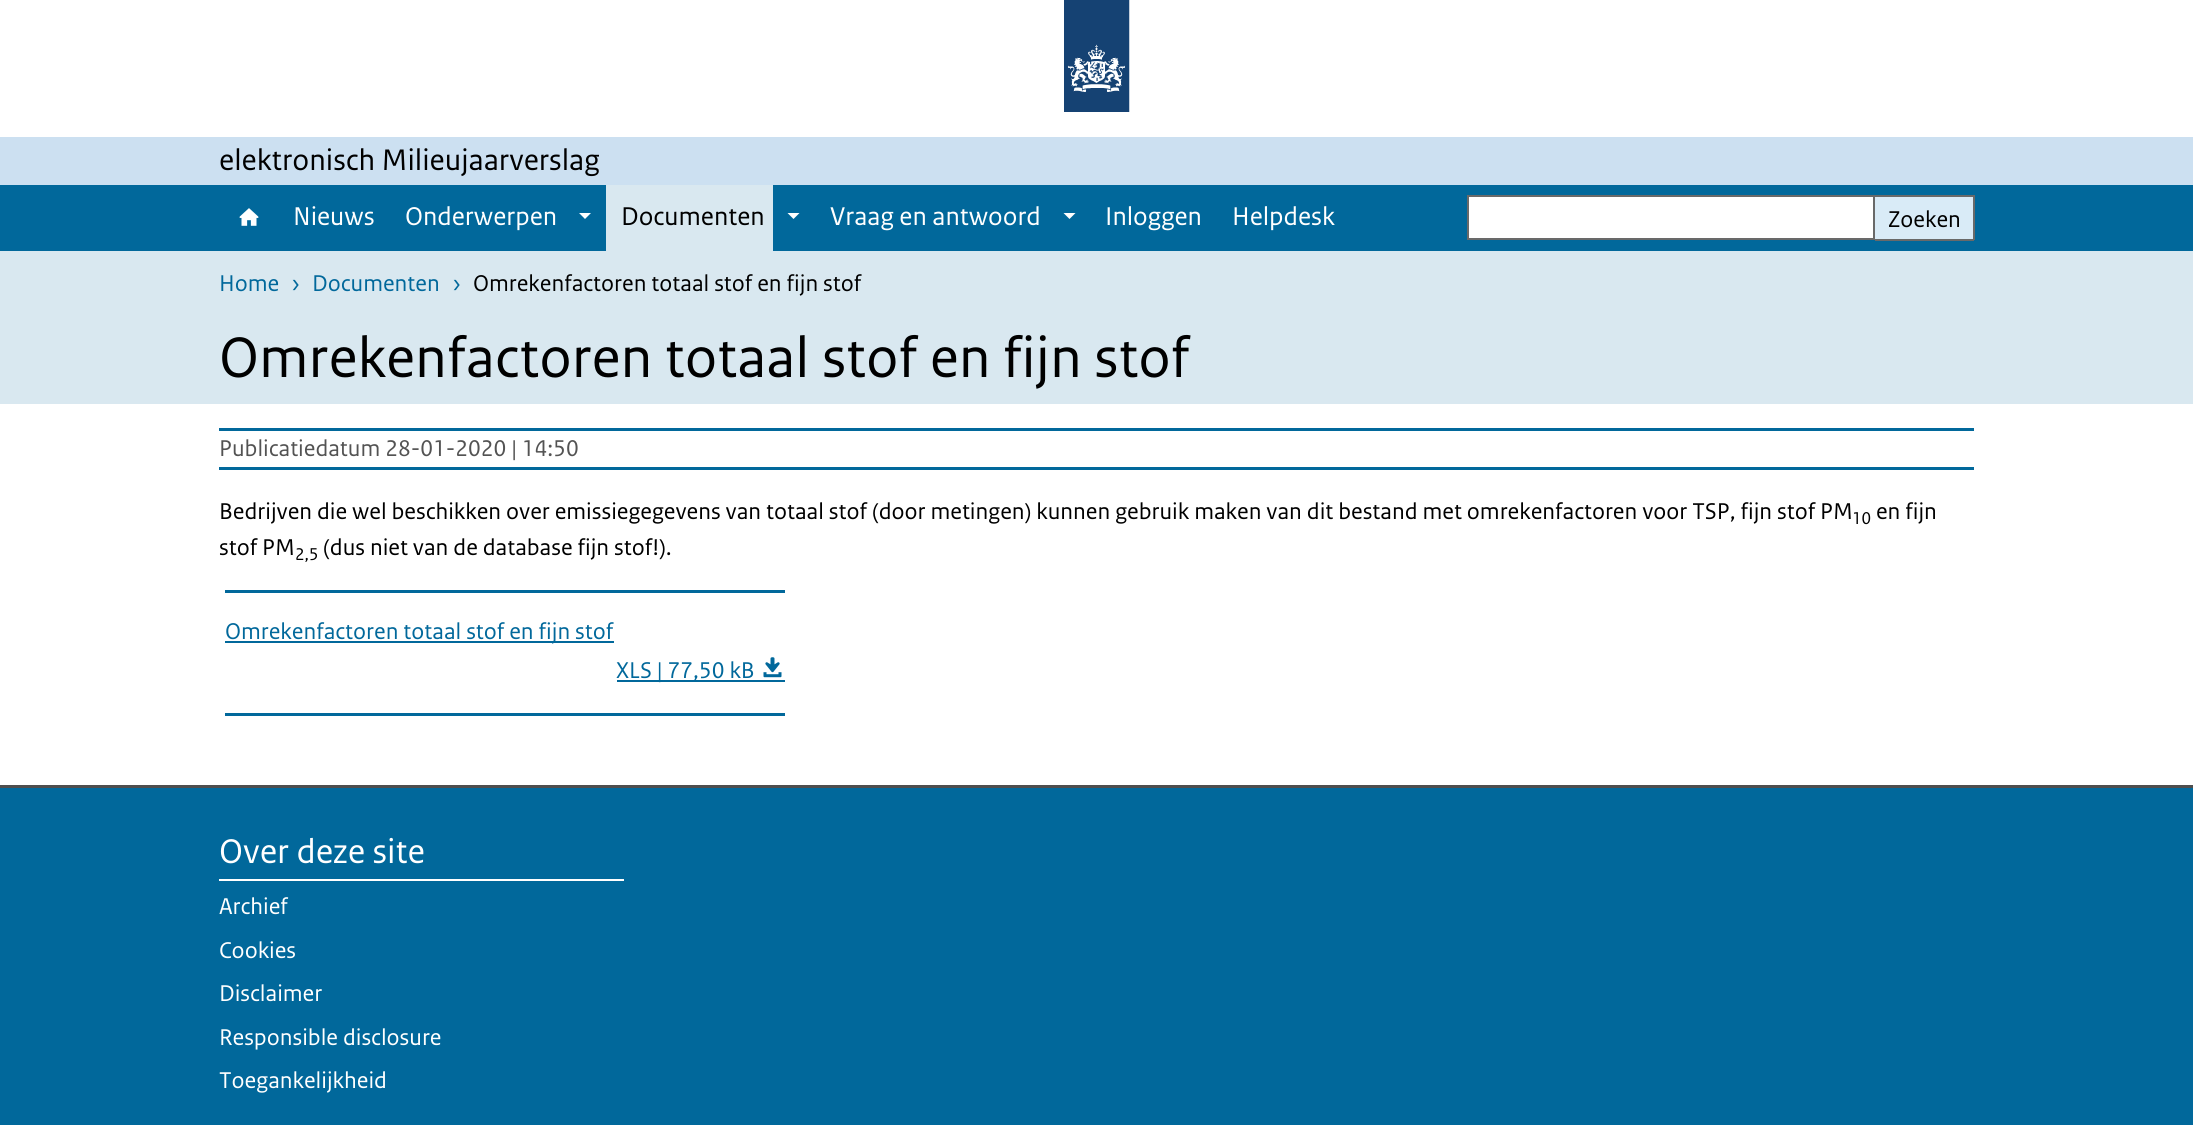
import math
import cairo

surface = cairo.ImageSurface(cairo.FORMAT_RGB24, 2193, 1125)
c = cairo.Context(surface)
options = cairo.FontOptions()
options.set_hint_metrics(cairo.HINT_METRICS_OFF)
options.set_hint_style(cairo.HINT_STYLE_NONE)
c.set_font_options(options)
c.set_miter_limit(4)
def C(code):
 c.set_source_rgb(*(v / 255 for v in bytes.fromhex(code[-6:])))
def F(family, size, italic, bold):
 c.select_font_face(family, cairo.FONT_SLANT_ITALIC if italic else cairo.FONT_SLANT_NORMAL, cairo.FONT_WEIGHT_BOLD if bold else cairo.FONT_WEIGHT_NORMAL)
 c.set_font_size(size)
def T(x, y, s):
 c.move_to(x, y)
 c.show_text(s)
def R(x, y, w, h):
 c.rectangle(x, y, w, h)
 c.fill()
def I(path, x, y, w, h):
 c.save()
 c.set_source_surface(cairo.ImageSurface.create_from_png(path), x, y)
 c.rectangle(x, y, w, h)
 c.fill()
 c.restore()
C('ffffff')
c.paint()
I('1.png',1064,0,66,112)
C('cce0f1')
R(0,137,2193,48)
F('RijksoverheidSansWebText',31.25,0,0)
C('000000')
T(219,170,'elektronisch Milieujaarverslag')
C('01689b')
R(0,185,2193,66)
I('2.png',239,208,20,18)
F('RijksoverheidSansWebText',27,0,0)
C('ffffff')
T(293,225,'Nieuws')
T(405,225,'Onderwerpen')
c.new_path()
c.move_to(579,213)
c.line_to(591,213)
c.line_to(585,219)
c.close_path()
c.fill()
C('d9e8f0')
R(606,185,167,66)
C('000000')
T(621,225,'Documenten')
C('ffffff')
c.new_path()
c.move_to(787.5,213)
c.line_to(799.5,213)
c.line_to(793.5,219)
c.close_path()
c.fill()
T(830,225,'Vraag en antwoord')
c.new_path()
c.move_to(1063.5,213)
c.line_to(1075.5,213)
c.line_to(1069.5,219)
c.close_path()
c.fill()
T(1105,225,'Inloggen')
T(1232,225,'Helpdesk')
c.rectangle(1468,196,406,43)
c.fill_preserve()
C('696969')
c.stroke()
C('d9ebf7')
R(1875,197,98,42)
C('696969')
R(1875,195,99,2)
R(1973,195,2,45)
R(1875,239,99,2)
F('RijksoverheidSansWebText',24,0,0)
C('000000')
T(1888,227,'Zoeken')
C('d9e8f0')
R(0,251,2193,153)
C('01689b')
T(219,291,'Home')
T(291,291,'›')
T(312,291,'Documenten')
T(452,291,'›')
C('000000')
T(473,291,'Omrekenfactoren totaal stof en fijn stof')
F('RijksoverheidSansWebText',60,0,0)
T(219,377,'Omrekenfactoren totaal stof en fijn stof')
C('01689b')
R(219,428,1755,3)
R(219,467,1755,3)
F('RijksoverheidSansWebText',24,0,0)
C('535353')
T(219,456,'Publicatiedatum 28-01-2020 | 14:50')
C('000000')
T(219,519,'Bedrijven die wel beschikken over emissiegegevens van totaal stof (door metingen) kunnen gebruik maken van dit bestand met omrekenfactoren voor TSP, fijn stof PM')
F('RijksoverheidSansWebText',18,0,0)
T(1852,524,'10')
F('RijksoverheidSansWebText',24,0,0)
T(1876,519,'en fijn')
T(219,555,'stof PM')
F('RijksoverheidSansWebText',18,0,0)
T(295,560,'2,5')
F('RijksoverheidSansWebText',24,0,0)
T(323,555,'(dus niet van de database fijn stof!).')
C('01689b')
R(225,590,560,3)
R(225,641,389,2)
T(225,639,'Omrekenfactoren totaal stof en fijn stof')
R(617,680,168,2)
T(616,678,'XLS | 77,50 kB')
I('3.png',763,657,19,21)
R(225,713,560,3)
R(0,788,2193,337)
C('4e4e4e')
R(0,785,2193,3)
C('ffffff')
R(219,879,405,2)
F('RijksoverheidSansWebText',36,0,0)
T(219,863,'Over deze site')
F('RijksoverheidSansWebText',24,0,0)
T(219,914,'Archief')
T(219,958,'Cookies')
T(219,1001,'Disclaimer')
T(219,1045,'Responsible disclosure')
T(219,1088,'Toegankelijkheid')
surface.write_to_png('o.png')
